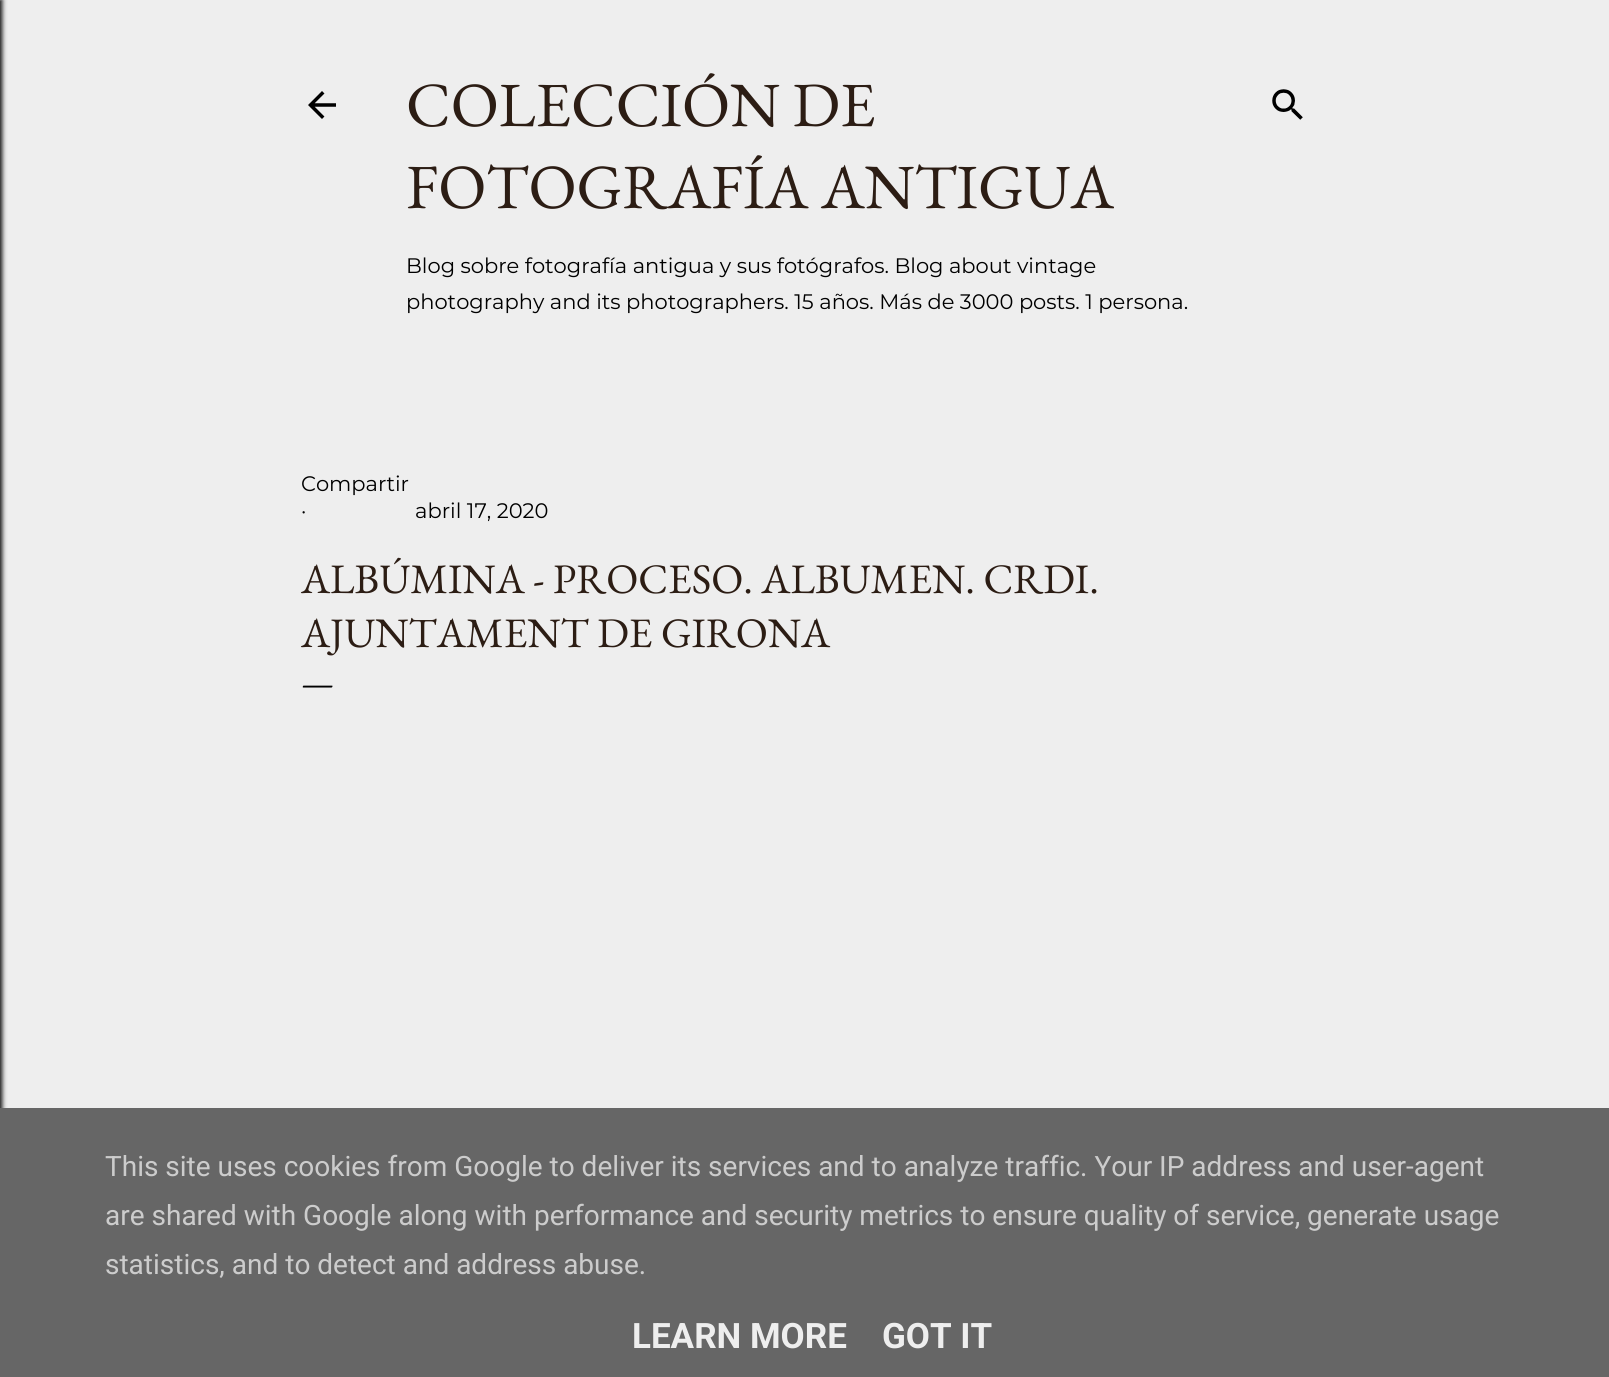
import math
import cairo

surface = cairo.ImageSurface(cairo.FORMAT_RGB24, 1609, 1377)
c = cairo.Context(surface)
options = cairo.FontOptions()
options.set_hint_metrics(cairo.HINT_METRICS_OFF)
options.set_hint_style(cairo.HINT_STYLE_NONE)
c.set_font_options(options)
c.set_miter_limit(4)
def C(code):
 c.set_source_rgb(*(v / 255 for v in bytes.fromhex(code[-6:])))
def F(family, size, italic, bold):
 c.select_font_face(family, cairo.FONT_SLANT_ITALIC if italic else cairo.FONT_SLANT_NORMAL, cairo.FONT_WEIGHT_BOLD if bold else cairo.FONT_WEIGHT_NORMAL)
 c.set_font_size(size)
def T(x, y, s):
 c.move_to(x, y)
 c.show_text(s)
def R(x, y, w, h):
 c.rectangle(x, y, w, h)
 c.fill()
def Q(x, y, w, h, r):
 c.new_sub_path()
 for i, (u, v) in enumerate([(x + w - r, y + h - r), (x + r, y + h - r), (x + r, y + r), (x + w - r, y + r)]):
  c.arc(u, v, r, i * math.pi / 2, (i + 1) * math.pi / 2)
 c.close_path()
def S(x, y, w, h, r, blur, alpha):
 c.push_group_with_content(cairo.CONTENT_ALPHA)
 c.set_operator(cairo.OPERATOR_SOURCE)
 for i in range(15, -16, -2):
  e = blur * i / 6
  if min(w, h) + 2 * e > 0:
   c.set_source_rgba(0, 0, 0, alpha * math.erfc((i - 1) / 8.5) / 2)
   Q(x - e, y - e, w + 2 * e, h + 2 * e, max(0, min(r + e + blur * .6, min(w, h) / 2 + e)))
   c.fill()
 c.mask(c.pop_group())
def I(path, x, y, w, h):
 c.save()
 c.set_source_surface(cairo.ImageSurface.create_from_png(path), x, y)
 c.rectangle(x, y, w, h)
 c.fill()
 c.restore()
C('eeeeee')
c.paint()
C('000000')
S(-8,0,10,1377,0,2.5,1)
I('1.png',308,91,28,28)
F('EB Garamond',63,0,0)
C('2c1d14')
T(406,126,'COLECCIÓN DE')
T(406,208,'FOTOGRAFÍA ANTIGUA')
F('Montserrat',21,0,0)
C('000000')
T(406,273,'Blog sobre fotografía antigua y sus fotógrafos. Blog about vintage')
T(406,309,'photography and its photographers. 15 años. Más de 3000 posts. 1 persona.')
I('2.png',1272,89,31,31)
T(301,491,'Compartir')
T(301,518,'·')
T(415,518,'abril 17, 2020')
F('EB Garamond',42,0,0)
C('2c1d14')
T(301,593,'ALBÚMINA - PROCESO. ALBUMEN. CRDI.')
T(301,647,'AJUNTAMENT DE GIRONA')
F('EB Garamond',35,0,0)
C('000000')
T(301,694,'—')
C('666666')
R(0,1108,1609,269)
F('Roboto',28,0,0)
C('cccccc')
T(105,1176,'This site uses cookies from Google to deliver its services and to analyze traffic. Your IP address and user-agent')
T(105,1225,'are shared with Google along with performance and security metrics to ensure quality of service, generate usage')
T(105,1274,'statistics, and to detect and address abuse.')
F('Roboto',35,0,1)
C('eeeeee')
T(632,1348,'LEARN MORE')
T(882,1348,'GOT IT')
surface.write_to_png('o.png')
